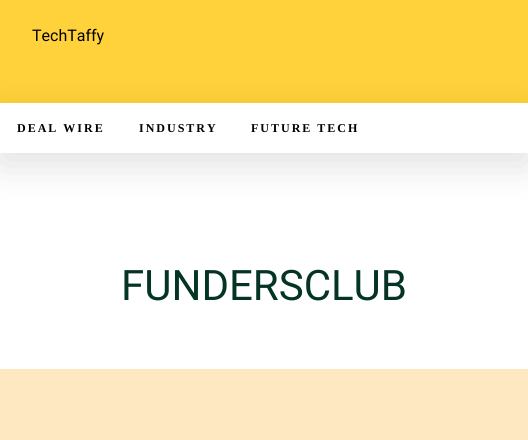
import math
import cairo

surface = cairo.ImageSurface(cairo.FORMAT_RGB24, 528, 440)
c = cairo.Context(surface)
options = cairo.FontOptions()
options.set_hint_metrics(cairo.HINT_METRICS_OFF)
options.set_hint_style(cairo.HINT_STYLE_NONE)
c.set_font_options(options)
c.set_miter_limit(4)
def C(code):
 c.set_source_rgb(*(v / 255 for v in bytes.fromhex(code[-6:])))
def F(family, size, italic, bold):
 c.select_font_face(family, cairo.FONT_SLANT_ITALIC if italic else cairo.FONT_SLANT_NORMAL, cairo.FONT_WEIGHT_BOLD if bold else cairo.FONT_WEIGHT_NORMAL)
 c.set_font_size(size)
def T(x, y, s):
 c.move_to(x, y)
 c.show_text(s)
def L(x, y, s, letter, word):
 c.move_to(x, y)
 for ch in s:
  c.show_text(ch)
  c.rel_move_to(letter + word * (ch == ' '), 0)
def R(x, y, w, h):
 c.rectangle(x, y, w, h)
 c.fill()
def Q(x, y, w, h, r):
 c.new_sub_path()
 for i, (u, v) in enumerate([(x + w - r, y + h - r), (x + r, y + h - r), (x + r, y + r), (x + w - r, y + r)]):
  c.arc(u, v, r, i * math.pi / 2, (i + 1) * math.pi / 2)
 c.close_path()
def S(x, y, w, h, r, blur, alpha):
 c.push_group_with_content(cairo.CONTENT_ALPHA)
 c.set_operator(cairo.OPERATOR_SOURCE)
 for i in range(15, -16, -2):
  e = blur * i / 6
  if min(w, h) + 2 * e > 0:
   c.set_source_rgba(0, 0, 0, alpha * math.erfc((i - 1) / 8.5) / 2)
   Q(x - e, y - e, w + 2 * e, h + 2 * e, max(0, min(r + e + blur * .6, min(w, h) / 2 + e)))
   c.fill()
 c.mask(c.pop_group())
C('ffffff')
c.paint()
C('ffd13a')
R(0,0,528,103)
F('Roboto',16,0,0)
C('000000')
T(32,41,'TechTaffy')
c.save()
c.set_fill_rule(cairo.FILL_RULE_EVEN_ODD)
c.new_path()
c.move_to(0,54)
c.line_to(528,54)
c.line_to(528,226)
c.line_to(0,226)
c.close_path()
c.move_to(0,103)
c.line_to(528,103)
c.line_to(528,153)
c.line_to(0,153)
c.close_path()
c.clip()
C('000000')
S(0,115,528,50,0,20,.12)
c.restore()
F('Liberation Serif',12,0,1)
L(17,132,'DEAL WIRE',2,0)
L(139,132,'INDUSTRY',2,0)
L(251,132,'FUTURE TECH',2,0)
F('Roboto',42,0,0)
C('053426')
T(121,300,'FUNDERSCLUB')
C('fde8c2')
R(0,369,528,71)
surface.write_to_png('o.png')
